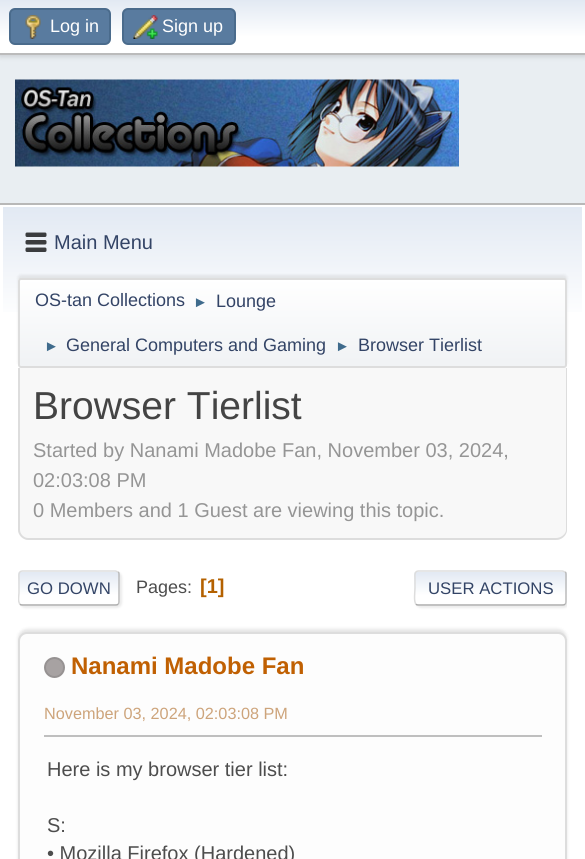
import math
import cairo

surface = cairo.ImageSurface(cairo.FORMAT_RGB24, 585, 859)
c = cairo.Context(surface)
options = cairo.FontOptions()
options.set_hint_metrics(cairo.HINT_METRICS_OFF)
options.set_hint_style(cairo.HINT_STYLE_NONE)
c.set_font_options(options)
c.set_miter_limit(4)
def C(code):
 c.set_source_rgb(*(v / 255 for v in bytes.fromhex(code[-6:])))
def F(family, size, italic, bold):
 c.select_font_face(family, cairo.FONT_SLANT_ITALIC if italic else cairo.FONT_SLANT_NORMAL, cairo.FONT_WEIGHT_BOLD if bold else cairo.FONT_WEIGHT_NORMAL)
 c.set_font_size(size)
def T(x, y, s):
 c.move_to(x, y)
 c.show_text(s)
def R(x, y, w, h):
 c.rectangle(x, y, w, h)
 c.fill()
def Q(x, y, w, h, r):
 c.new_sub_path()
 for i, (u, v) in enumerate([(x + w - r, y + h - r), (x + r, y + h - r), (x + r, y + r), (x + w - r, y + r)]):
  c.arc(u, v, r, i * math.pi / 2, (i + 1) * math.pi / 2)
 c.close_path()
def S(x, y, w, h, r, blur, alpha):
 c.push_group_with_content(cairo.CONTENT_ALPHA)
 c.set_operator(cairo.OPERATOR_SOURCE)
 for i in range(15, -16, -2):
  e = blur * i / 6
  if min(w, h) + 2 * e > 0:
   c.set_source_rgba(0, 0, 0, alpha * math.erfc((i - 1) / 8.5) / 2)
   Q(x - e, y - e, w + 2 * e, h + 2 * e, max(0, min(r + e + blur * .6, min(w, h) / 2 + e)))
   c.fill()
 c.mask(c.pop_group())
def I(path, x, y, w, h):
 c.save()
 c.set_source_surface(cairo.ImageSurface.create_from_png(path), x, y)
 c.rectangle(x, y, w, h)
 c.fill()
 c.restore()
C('e9eef2')
c.paint()
C('000000')
S(0,2,585,54,0,3,.16)
gradient = cairo.LinearGradient(293,0,293,53)
gradient.add_color_stop_rgba(0,0.886,0.914,0.953,1)
gradient.add_color_stop_rgba(.7,1,1,1,1)
c.set_source(gradient)
R(0,0,585,53)
C('bbbbbb')
R(0,53,585,2)
C('597b9f')
Q(10,9,100,35,5)
c.fill_preserve()
C('4a6b8c')
c.stroke()
I('1.png',25,15,16,24)
F('Liberation Sans',18,0,0)
C('ffffff')
T(50,32,'Log in')
C('597b9f')
Q(123,9,112,35,5)
c.fill_preserve()
C('4a6b8c')
c.stroke()
I('2.png',133,15,25,24)
C('ffffff')
T(162,32,'Sign up')
I('3.png',15,79,444,88)
R(0,205,585,654)
C('b8b8b8')
R(0,203,585,2)
gradient = cairo.LinearGradient(293,207,293,371)
gradient.add_color_stop_rgba(0,0.886,0.914,0.953,1)
gradient.add_color_stop_rgba(.7,1,1,1,1)
c.set_source(gradient)
R(3,207,579,105)
I('4.png',25,232,22,20)
F('Liberation Sans',20,0,0)
C('334466')
T(54,249,'Main Menu')
C('000000')
S(18,275,549,90,3,1.5,.08)
c.save()
Q(18,278,549,90,3)
c.clip()
gradient = cairo.LinearGradient(293,279,293,366)
gradient.add_color_stop_rgba(0,1,1,1,1)
gradient.add_color_stop_rgba(.95,0.945,0.953,0.961,1)
c.set_source(gradient)
R(18,279,549,87)
c.restore()
Q(19,279,547,88,2)
C('dddddd')
c.stroke()
F('Liberation Sans',18,0,0)
C('334466')
T(35,306,'OS-tan Collections')
F('Liberation Sans',15,0,0)
C('3f6b8c')
T(193,307,'►')
F('Liberation Sans',18,0,0)
C('334466')
T(216,307,'Lounge')
F('Liberation Sans',15,0,0)
C('3f6b8c')
T(44,351,'►')
F('Liberation Sans',18,0,0)
C('334466')
T(66,351,'General Computers and Gaming')
F('Liberation Sans',15,0,0)
C('3f6b8c')
T(335,351,'►')
F('Liberation Sans',18,0,0)
C('334466')
T(358,351,'Browser Tierlist')
C('f8f8f8')
c.new_path()
c.move_to(18,368)
c.line_to(567,368)
c.line_to(567,529)
c.curve_to(567,535,562,540,556,540)
c.line_to(29,540)
c.curve_to(23,540,18,535,18,529)
c.close_path()
c.fill()
C('dddddd')
c.set_fill_rule(cairo.FILL_RULE_EVEN_ODD)
c.new_path()
c.move_to(18,368)
c.line_to(567,368)
c.line_to(567,530)
c.curve_to(567,535,562,540,556,540)
c.line_to(28,540)
c.curve_to(23,540,18,535,18,530)
c.close_path()
c.move_to(20,368)
c.line_to(566,368)
c.line_to(566,530)
c.curve_to(566,534,561,538,556,538)
c.line_to(28,538)
c.curve_to(24,538,20,534,20,530)
c.close_path()
c.fill()
F('Liberation Sans',39,0,0)
C('444444')
T(33,419,'Browser Tierlist')
F('Liberation Sans',20,0,0)
C('959595')
T(33,457,'Started by Nanami Madobe Fan, November 03, 2024,')
T(33,487,'02:03:08 PM')
T(33,517,'0 Members and 1 Guest are viewing this topic.')
C('dddddd')
S(20,572,102,36,5,1,.57)
C('ffffff')
Q(18,570,102,36,5)
c.fill()
c.save()
c.set_fill_rule(cairo.FILL_RULE_WINDING)
Q(18,570,102,36,5)
c.clip()
gradient = cairo.LinearGradient(69,572,69,605)
gradient.add_color_stop_rgba(0,0.886,0.914,0.953,1)
gradient.add_color_stop_rgba(.7,1,1,1,1)
c.set_source(gradient)
R(18,572,102,33)
c.restore()
c.new_path()
c.move_to(118,572)
c.curve_to(119,572.5,119,573.5,119,574.5)
c.line_to(119,601.5)
c.curve_to(119,602.5,119,603.5,118,604)
C('bbbbbb')
c.set_line_width(1.5)
c.stroke()
c.new_path()
c.move_to(118,604)
c.curve_to(117.5,605,116.5,605,115.5,605)
c.line_to(22.5,605)
c.curve_to(21.5,605,20.5,605,20,604)
C('aaaaaa')
c.stroke()
c.save()
c.set_fill_rule(cairo.FILL_RULE_WINDING)
c.rectangle(18,563,549,51)
c.clip()
c.new_path()
c.move_to(20,604)
c.curve_to(17.5,601.5,19,595.5,19,592.5)
c.line_to(19,579)
c.curve_to(19,576,18,571,22.5,571)
c.line_to(115.5,571)
c.line_to(118,572)
C('dddddd')
c.stroke()
c.restore()
F('Liberation Sans',16.75,0,0)
C('334466')
T(27,594,'GO DOWN')
F('Liberation Sans',18,0,0)
C('4d4d4d')
T(136,593,'Pages:')
F('Liberation Sans',20,0,1)
C('b46100')
T(200,593,'[1]')
c.save()
c.set_fill_rule(cairo.FILL_RULE_WINDING)
c.rectangle(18,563,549,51)
c.clip()
C('dddddd')
S(416,572,153,36,5,1,.57)
c.restore()
C('ffffff')
Q(414,570,153,36,5)
c.fill()
c.save()
c.set_fill_rule(cairo.FILL_RULE_WINDING)
Q(414,570,153,36,5)
c.clip()
gradient = cairo.LinearGradient(491,572,491,605)
gradient.add_color_stop_rgba(0,0.886,0.914,0.953,1)
gradient.add_color_stop_rgba(.7,1,1,1,1)
c.set_source(gradient)
R(414,572,153,33)
c.restore()
c.new_path()
c.move_to(565,572)
c.curve_to(566,572.5,566,573.5,566,574.5)
c.line_to(566,601.5)
c.curve_to(566,602.5,566,603.5,565,604)
C('bbbbbb')
c.stroke()
c.new_path()
c.move_to(565,604)
c.curve_to(564.5,605,563.5,605,562.5,605)
c.line_to(418.5,605)
c.curve_to(417.5,605,416.5,605,416,604)
C('aaaaaa')
c.stroke()
c.new_path()
c.move_to(416,604)
c.curve_to(413.5,602,415,591,415,588)
c.line_to(415,579)
c.curve_to(415,576,414,571,418.5,571)
c.line_to(562.5,571)
c.line_to(565,572)
C('dddddd')
c.stroke()
F('Liberation Sans',16.75,0,0)
C('334466')
T(428,594,'USER ACTIONS')
C('000000')
S(18,629,549,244,9,1.5,.1)
C('fdfdfd')
Q(19,633,547,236,8)
c.fill_preserve()
C('dddddd')
c.set_line_width(2)
c.stroke()
C('a7a2a2')
c.arc(54.5,667.5,9.5,0,2 * math.pi)
c.fill_preserve()
C('969292')
c.stroke()
F('Liberation Sans',24,0,1)
C('c06002')
T(71,674,'Nanami Madobe Fan')
F('Liberation Sans',16.25,0,0)
C('cda47b')
T(44,719,'November 03, 2024, 02:03:08 PM')
C('bfbfbf')
R(44,735,498,2)
F('Liberation Sans',20,0,0)
C('4d4d4d')
T(47,776,'Here is my browser tier list:')
T(47,832,'S:')
T(47,860,'• Mozilla Firefox (Hardened)')
surface.write_to_png('o.png')
